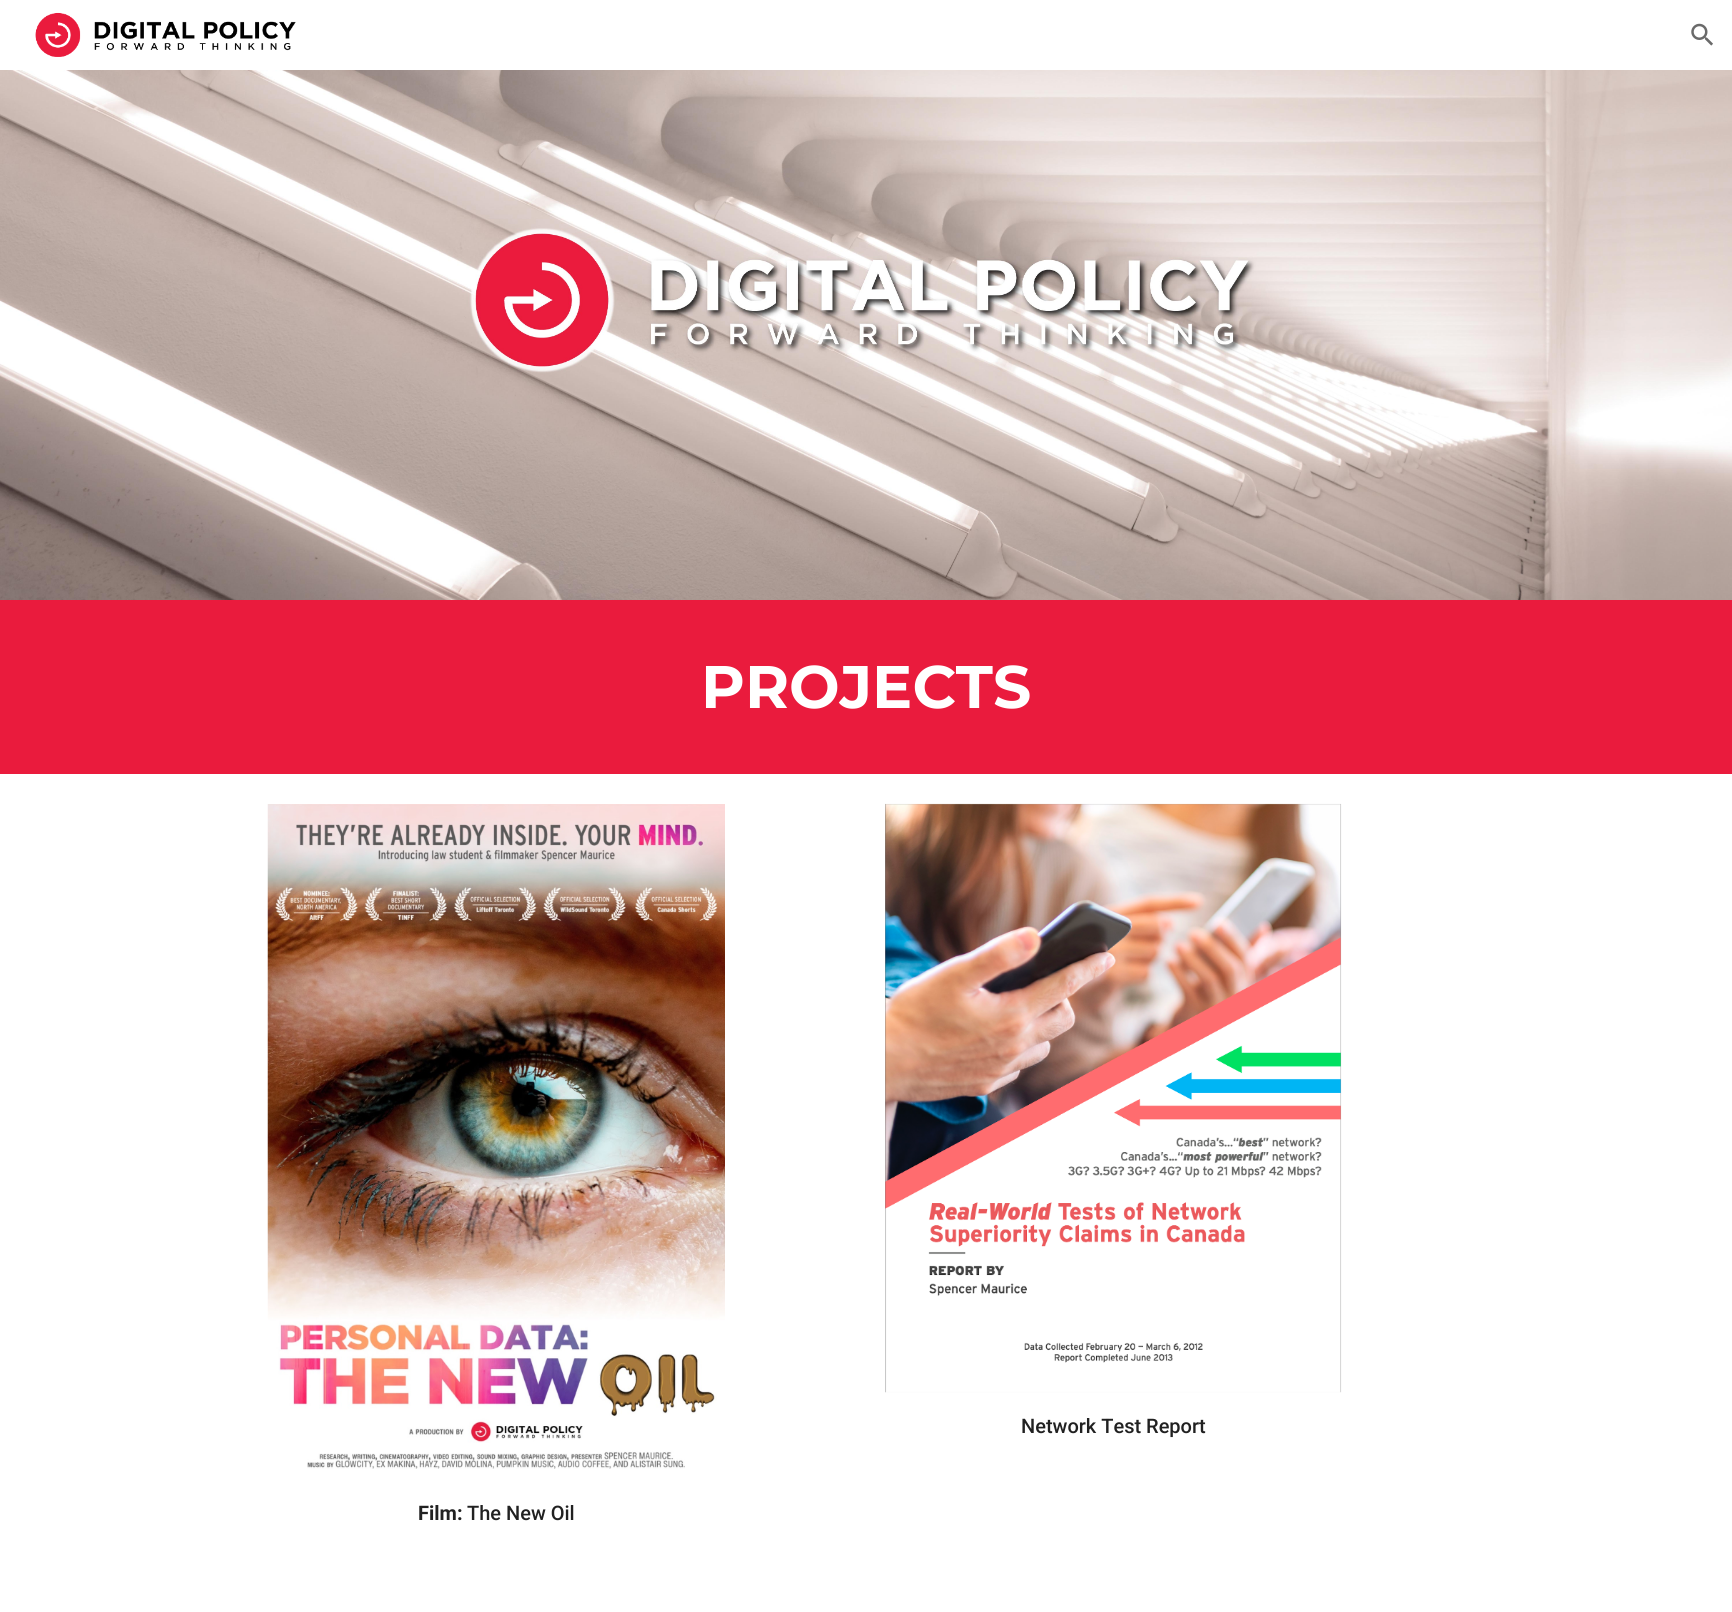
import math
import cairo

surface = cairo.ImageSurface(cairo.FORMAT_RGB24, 1732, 1612)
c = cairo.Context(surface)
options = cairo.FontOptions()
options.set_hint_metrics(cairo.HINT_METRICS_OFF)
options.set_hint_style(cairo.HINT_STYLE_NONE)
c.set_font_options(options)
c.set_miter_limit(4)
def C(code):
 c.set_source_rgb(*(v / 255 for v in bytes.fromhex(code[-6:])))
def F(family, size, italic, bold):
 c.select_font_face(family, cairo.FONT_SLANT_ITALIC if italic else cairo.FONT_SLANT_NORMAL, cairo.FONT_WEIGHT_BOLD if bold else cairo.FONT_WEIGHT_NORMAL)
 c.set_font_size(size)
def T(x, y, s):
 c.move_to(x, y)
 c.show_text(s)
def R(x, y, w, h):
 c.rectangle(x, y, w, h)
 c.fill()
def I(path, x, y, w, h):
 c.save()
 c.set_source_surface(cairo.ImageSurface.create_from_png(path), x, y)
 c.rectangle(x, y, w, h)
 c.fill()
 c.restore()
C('ffffff')
c.paint()
I('1.png',35,12,261,45)
I('2.png',1691,23,22,23)
I('3.png',0,70,1732,530)
C('ea1b3d')
R(0,600,1732,174)
F('Montserrat',60,0,1)
C('ffffff')
T(701,708,'PROJECTS')
I('4.png',885,803,457,590)
F('Roboto Medium',20,0,0)
C('212121')
T(1021,1433,'Network Test Report')
I('5.png',267,804,458,665)
F('Roboto',20,0,1)
T(418,1520,'Film:')
F('Roboto Medium',20,0,0)
T(467,1520,'The New Oil')
surface.write_to_png('o.png')
